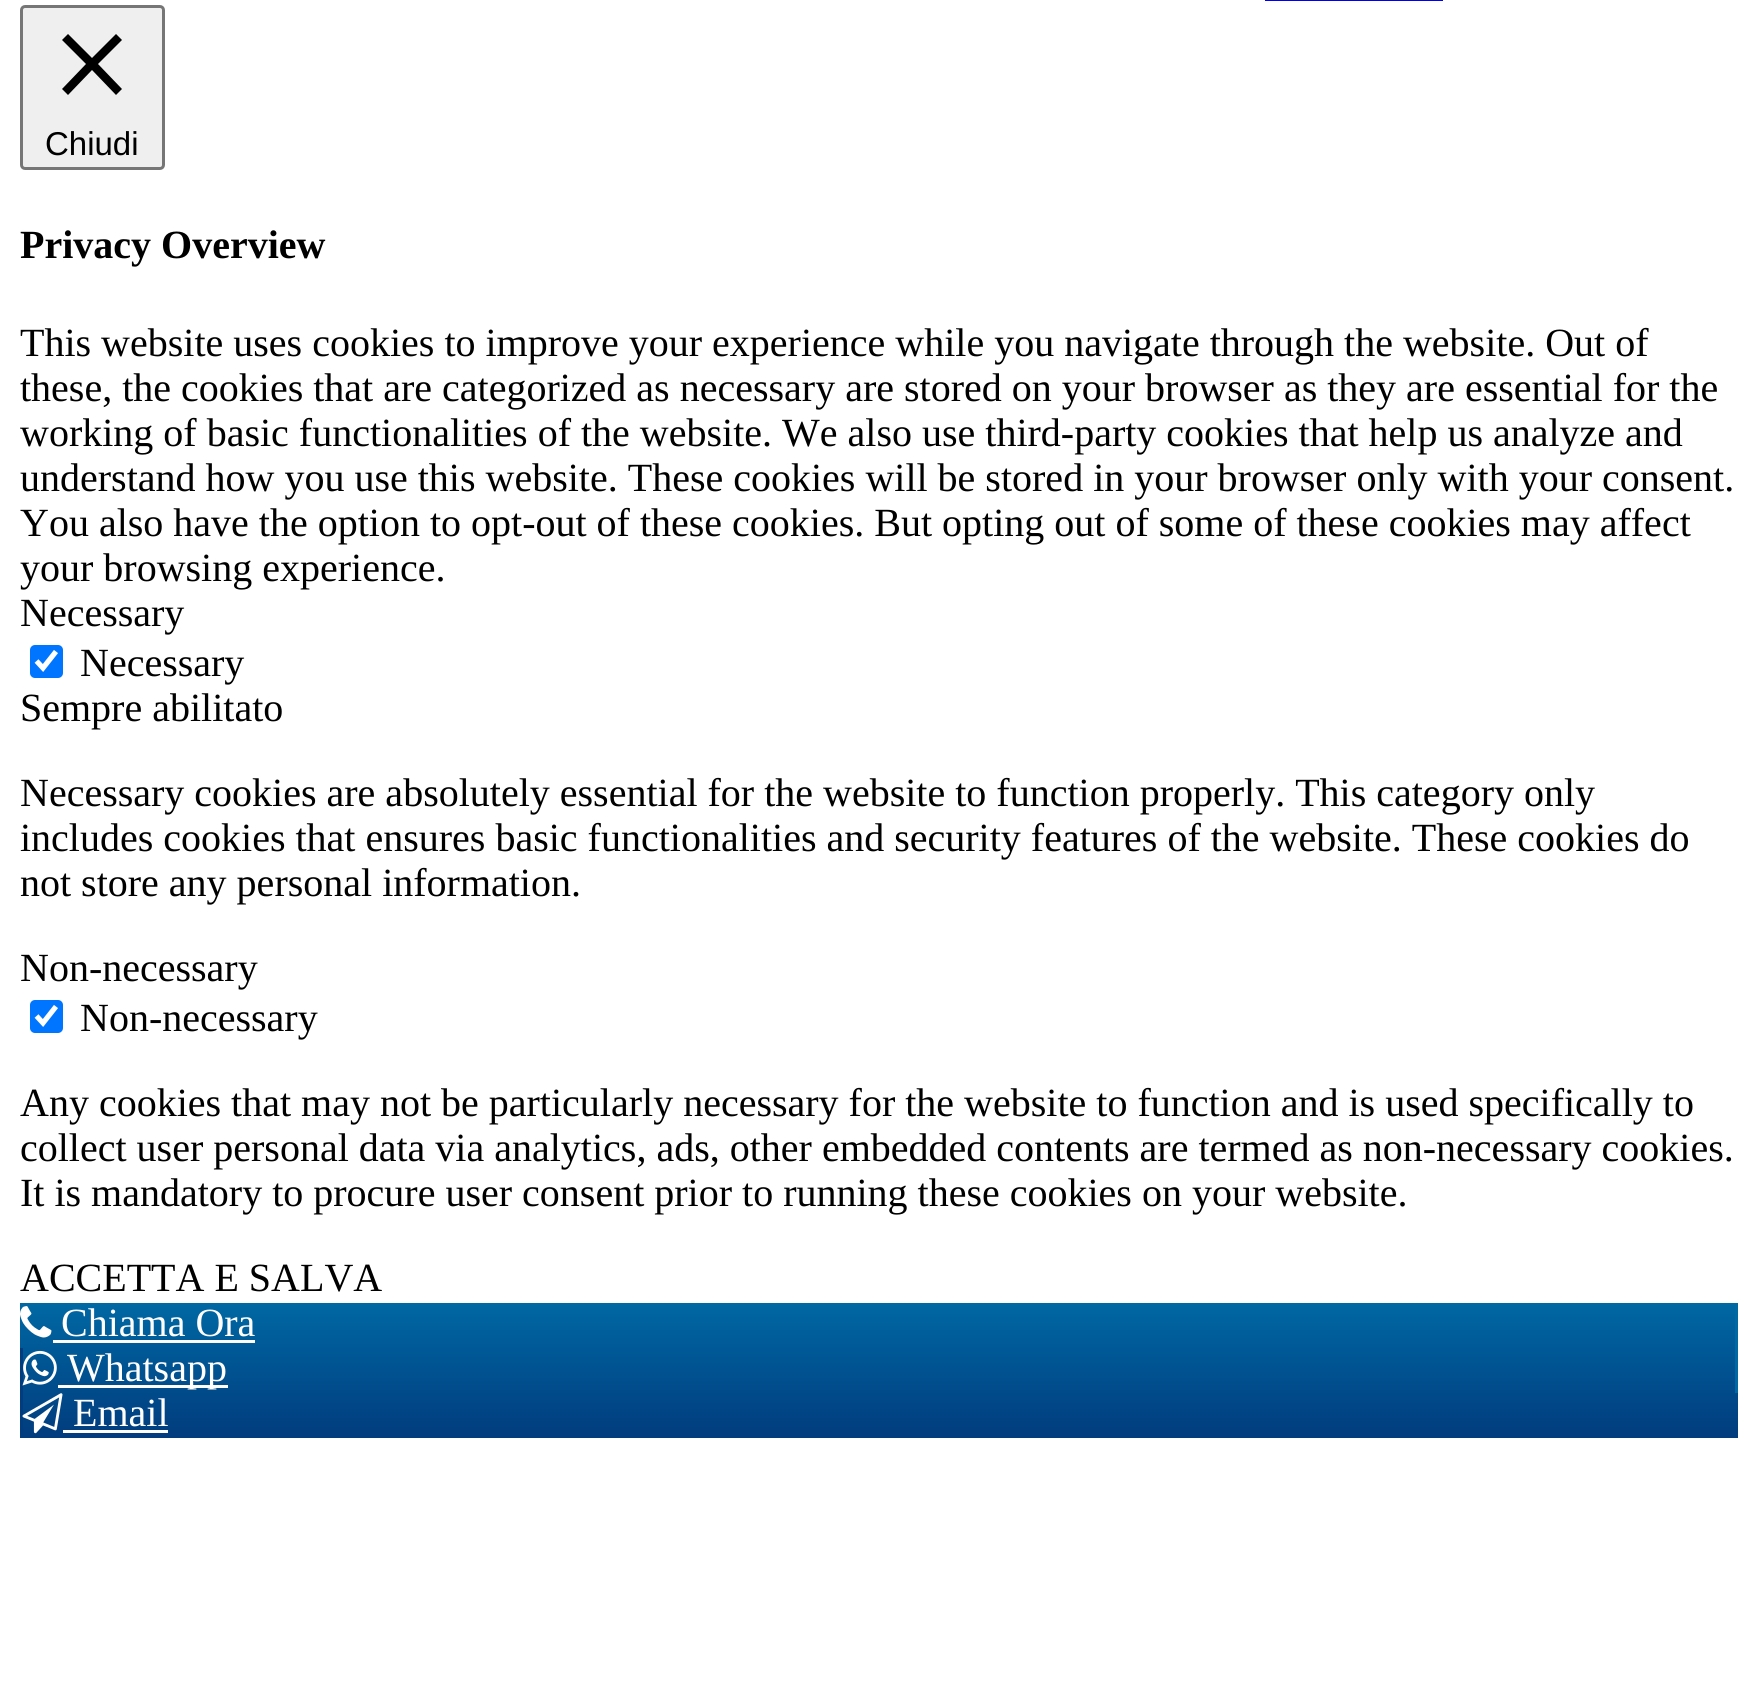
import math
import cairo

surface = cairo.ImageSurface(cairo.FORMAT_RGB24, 1757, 1697)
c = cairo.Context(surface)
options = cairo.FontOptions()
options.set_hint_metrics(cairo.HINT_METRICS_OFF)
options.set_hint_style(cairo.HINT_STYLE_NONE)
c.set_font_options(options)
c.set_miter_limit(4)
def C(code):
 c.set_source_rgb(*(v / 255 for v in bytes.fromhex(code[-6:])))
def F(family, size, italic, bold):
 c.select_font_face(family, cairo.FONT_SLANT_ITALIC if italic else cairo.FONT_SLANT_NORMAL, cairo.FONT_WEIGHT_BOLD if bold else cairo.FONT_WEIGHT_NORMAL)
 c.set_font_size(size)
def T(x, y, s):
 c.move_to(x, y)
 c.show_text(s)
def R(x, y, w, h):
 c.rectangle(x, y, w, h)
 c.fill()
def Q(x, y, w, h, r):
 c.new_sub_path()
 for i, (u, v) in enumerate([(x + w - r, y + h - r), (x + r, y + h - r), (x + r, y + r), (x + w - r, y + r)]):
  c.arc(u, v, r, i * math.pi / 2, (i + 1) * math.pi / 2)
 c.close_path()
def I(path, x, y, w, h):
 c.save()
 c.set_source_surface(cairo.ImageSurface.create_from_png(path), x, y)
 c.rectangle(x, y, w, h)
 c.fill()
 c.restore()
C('ffffff')
c.paint()
C('0000ee')
R(1265,0,178,1)
C('efefef')
Q(21.5,6.5,142,162,3.5)
c.fill_preserve()
C('767676')
c.set_line_width(3)
c.stroke()
C('000000')
c.new_path()
c.move_to(122,40)
c.line_to(116,34)
c.line_to(92,58)
c.line_to(68,34)
c.line_to(62,40)
c.line_to(86,64)
c.line_to(62,89)
c.line_to(68,95)
c.line_to(92,70)
c.line_to(116,95)
c.line_to(122,89)
c.line_to(98,64)
c.close_path()
c.fill()
F('Liberation Sans',33,0,0)
T(45,155,'Chiudi')
F('Liberation Serif',40,0,1)
T(20,258,'Privacy Overview')
F('Liberation Serif',40,0,0)
T(20,356,'This website uses cookies to improve your experience while you navigate through the website. Out of')
T(20,401,'these, the cookies that are categorized as necessary are stored on your browser as they are essential for the')
T(20,446,'working of basic functionalities of the website. We also use third-party cookies that help us analyze and')
T(20,491,'understand how you use this website. These cookies will be stored in your browser only with your consent.')
T(20,536,'You also have the option to opt-out of these cookies. But opting out of some of these cookies may affect')
T(20,581,'your browsing experience.')
T(20,626,'Necessary')
C('0075ff')
Q(30,645,33,33,5)
c.fill()
c.new_path()
c.move_to(36.5,661)
c.line_to(43,668)
c.line_to(56,651.5)
C('ffffff')
c.set_line_width(5.2)
c.stroke()
C('000000')
T(80,676,'Necessary')
T(20,721,'Sempre abilitato')
T(20,806,'Necessary cookies are absolutely essential for the website to function properly. This category only')
T(20,851,'includes cookies that ensures basic functionalities and security features of the website. These cookies do')
T(20,896,'not store any personal information.')
T(20,981,'Non-necessary')
C('0075ff')
Q(30,1000,33,33,5)
c.fill()
c.new_path()
c.move_to(36.5,1016)
c.line_to(43,1023)
c.line_to(56,1006.5)
C('ffffff')
c.stroke()
C('000000')
T(80,1031,'Non-necessary')
T(20,1116,'Any cookies that may not be particularly necessary for the website to function and is used specifically to')
T(20,1161,'collect user personal data via analytics, ads, other embedded contents are termed as non-necessary cookies.')
T(20,1206,'It is mandatory to procure user consent prior to running these cookies on your website.')
T(20,1291,'ACCETTA E SALVA')
gradient = cairo.LinearGradient(879,1303,879,1438)
gradient.add_color_stop_rgba(0,0,0.408,0.639,1)
gradient.add_color_stop_rgba(1,0.004,0.235,0.494,1)
c.set_source(gradient)
R(20,1303,1718,135)
C('0068a3')
R(1735,1303,3,90)
I('1.png',20,1306,32,32)
C('ffffff')
T(61,1336,'Chiama Ora')
R(53,1340,202,3)
C('013c7e')
R(20,1348,3,90)
I('2.png',22,1350,35,36)
C('ffffff')
R(58,1385,170,3)
T(67,1381,'Whatsapp')
I('3.png',22,1393,41,41)
T(73,1426,'Email')
R(63,1430,105,3)
surface.write_to_png('o.png')
